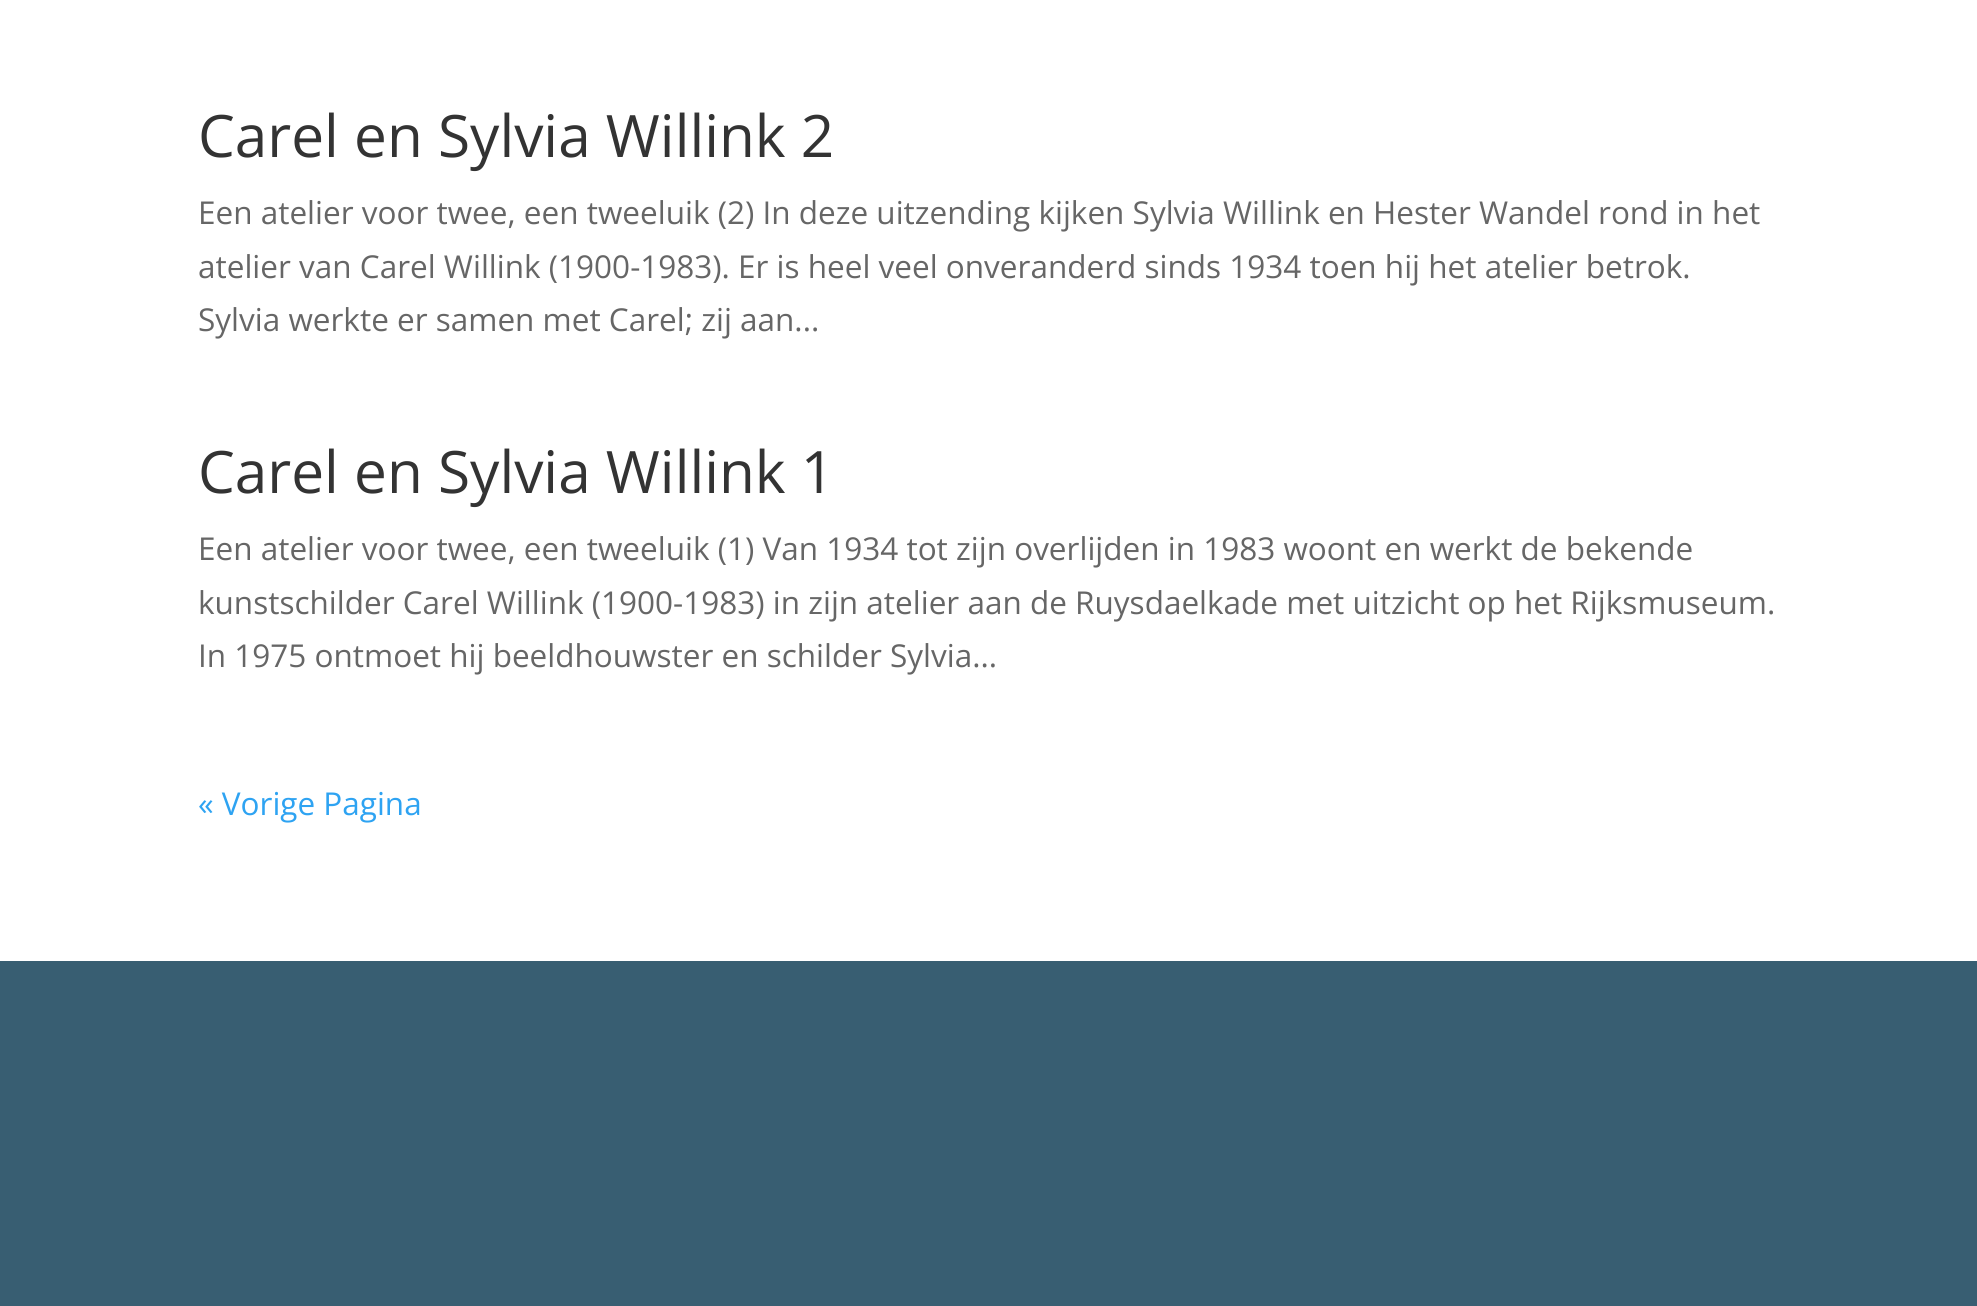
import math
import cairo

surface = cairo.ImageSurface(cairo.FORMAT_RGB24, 1977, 1306)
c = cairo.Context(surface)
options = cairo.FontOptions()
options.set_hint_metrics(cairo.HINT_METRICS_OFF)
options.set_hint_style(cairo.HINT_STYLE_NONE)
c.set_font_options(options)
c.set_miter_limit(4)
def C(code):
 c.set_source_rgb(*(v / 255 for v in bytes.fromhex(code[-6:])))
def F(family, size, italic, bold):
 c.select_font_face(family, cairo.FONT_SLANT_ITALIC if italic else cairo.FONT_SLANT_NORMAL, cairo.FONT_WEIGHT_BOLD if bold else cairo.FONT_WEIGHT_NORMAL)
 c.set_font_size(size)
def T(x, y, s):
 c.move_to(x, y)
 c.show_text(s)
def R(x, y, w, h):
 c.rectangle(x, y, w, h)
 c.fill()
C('ffffff')
c.paint()
F('Open Sans',58.5,0,0)
C('333333')
T(198,157,'Carel en Sylvia Willink 2')
F('Open Sans',31.5,0,0)
C('666666')
T(198,224,'Een atelier voor twee, een tweeluik (2) In deze uitzending kijken Sylvia Willink en Hester Wandel rond in het')
T(198,278,'atelier van Carel Willink (1900-1983). Er is heel veel onveranderd sinds 1934 toen hij het atelier betrok.')
T(198,331,'Sylvia werkte er samen met Carel; zij aan...')
F('Open Sans',58.5,0,0)
C('333333')
T(198,493,'Carel en Sylvia Willink 1')
F('Open Sans',31.5,0,0)
C('666666')
T(198,560,'Een atelier voor twee, een tweeluik (1) Van 1934 tot zijn overlijden in 1983 woont en werkt de bekende')
T(198,614,'kunstschilder Carel Willink (1900-1983) in zijn atelier aan de Ruysdaelkade met uitzicht op het Rijksmuseum.')
T(198,667,'In 1975 ontmoet hij beeldhouwster en schilder Sylvia...')
C('2ea3f2')
T(198,815,'« Vorige Pagina')
C('385e72')
R(0,961,1977,345)
surface.write_to_png('o.png')
